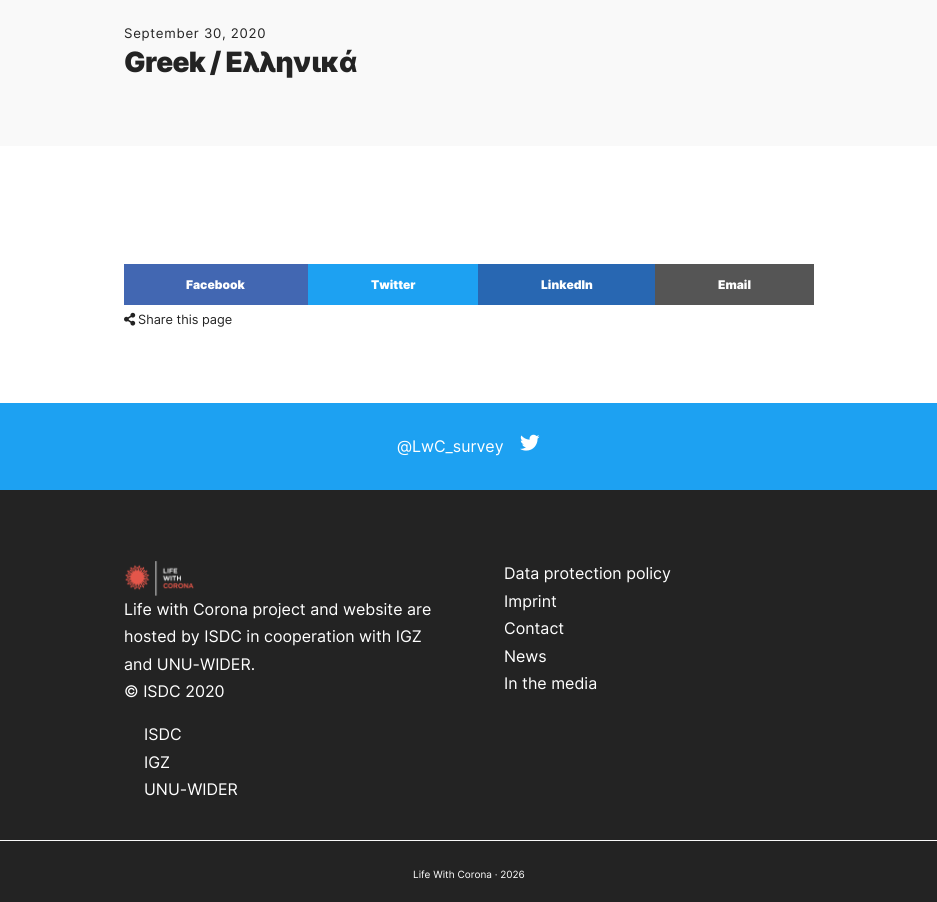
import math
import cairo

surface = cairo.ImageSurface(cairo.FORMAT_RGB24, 937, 902)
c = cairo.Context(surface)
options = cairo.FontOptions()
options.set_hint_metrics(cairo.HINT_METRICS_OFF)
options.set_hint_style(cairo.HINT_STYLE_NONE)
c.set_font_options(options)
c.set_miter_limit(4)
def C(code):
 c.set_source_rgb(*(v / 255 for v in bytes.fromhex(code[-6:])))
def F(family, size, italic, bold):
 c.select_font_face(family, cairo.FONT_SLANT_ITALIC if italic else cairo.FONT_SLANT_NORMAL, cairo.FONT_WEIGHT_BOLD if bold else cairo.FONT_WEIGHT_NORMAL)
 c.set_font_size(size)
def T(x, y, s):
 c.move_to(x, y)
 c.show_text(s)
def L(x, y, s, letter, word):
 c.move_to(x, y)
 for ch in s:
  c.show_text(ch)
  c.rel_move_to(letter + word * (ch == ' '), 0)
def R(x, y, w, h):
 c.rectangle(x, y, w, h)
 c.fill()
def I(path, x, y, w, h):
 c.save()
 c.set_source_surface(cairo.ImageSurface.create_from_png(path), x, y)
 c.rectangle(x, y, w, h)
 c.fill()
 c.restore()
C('ffffff')
c.paint()
C('f9f9f9')
R(0,0,937,146)
F('Inter',13.25,0,0)
C('232323')
L(124,38,'September 30, 2020',.7,0)
F('Inter Black',28,0,0)
L(124,72,'Greek / Ελληνικά',-.75,0)
C('4267b2')
R(124,264,184,41)
F('Inter Black',12,0,0)
C('ffffff')
T(186,289,'Facebook')
C('1da1f2')
R(308,264,170,41)
C('ffffff')
T(371,289,'Twitter')
C('2867b2')
R(478,264,177,41)
C('ffffff')
T(541,289,'LinkedIn')
C('555555')
R(655,264,159,41)
C('ffffff')
T(718,289,'Email')
I('1.png',124,312,12,14)
F('Inter',12.75,0,0)
C('232323')
T(138,324,'Share this page')
C('1da1f2')
R(0,403,937,87)
F('Inter',16,0,0)
C('ffffff')
T(397,452,'@LwC_survey')
I('2.png',520,434,20,17)
C('232323')
R(0,490,937,412)
I('3.png',125,561,69,35)
C('ffffff')
T(124,615,'Life with Corona project and website are')
T(124,642,'hosted by ISDC in cooperation with IGZ')
T(124,670,'and UNU-WIDER.')
T(124,697,'© ISDC 2020')
T(144,740,'ISDC')
T(144,768,'IGZ')
T(144,795,'UNU-WIDER')
T(504,579,'Data protection policy')
T(504,607,'Imprint')
T(504,634,'Contact')
T(504,662,'News')
T(504,689,'In the media')
C('f9f9f9')
R(0,840,937,1)
F('Inter',10,0,0)
C('ffffff')
T(413,878,'Life With Corona · 2026')
surface.write_to_png('o.png')
